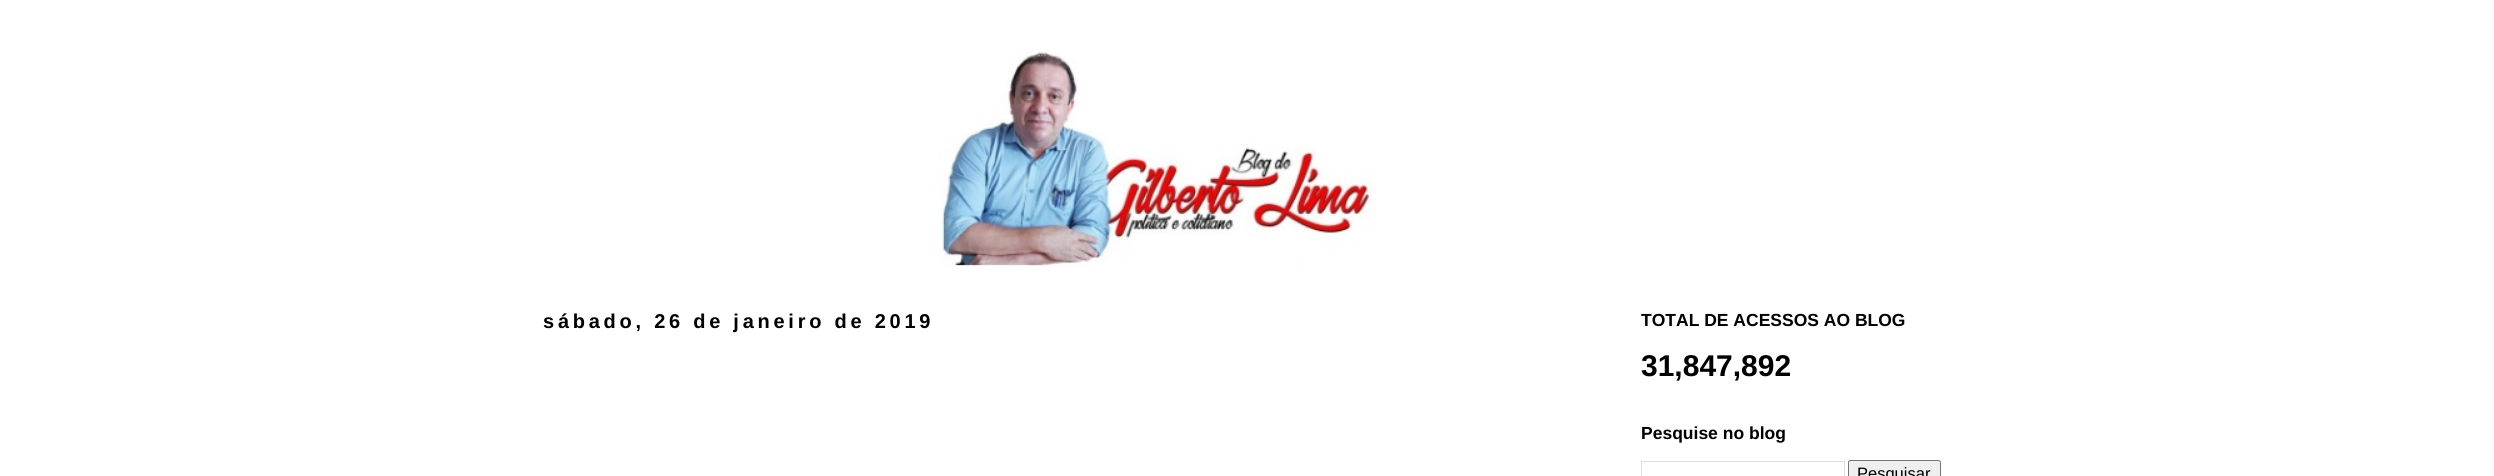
import math
import cairo

surface = cairo.ImageSurface(cairo.FORMAT_RGB24, 2494, 476)
c = cairo.Context(surface)
options = cairo.FontOptions()
options.set_hint_metrics(cairo.HINT_METRICS_OFF)
options.set_hint_style(cairo.HINT_STYLE_NONE)
c.set_font_options(options)
c.set_miter_limit(4)
def C(code):
 c.set_source_rgb(*(v / 255 for v in bytes.fromhex(code[-6:])))
def F(family, size, italic, bold):
 c.select_font_face(family, cairo.FONT_SLANT_ITALIC if italic else cairo.FONT_SLANT_NORMAL, cairo.FONT_WEIGHT_BOLD if bold else cairo.FONT_WEIGHT_NORMAL)
 c.set_font_size(size)
def T(x, y, s):
 c.move_to(x, y)
 c.show_text(s)
def L(x, y, s, letter, word):
 c.move_to(x, y)
 for ch in s:
  c.show_text(ch)
  c.rel_move_to(letter + word * (ch == ' '), 0)
def Q(x, y, w, h, r):
 c.new_sub_path()
 for i, (u, v) in enumerate([(x + w - r, y + h - r), (x + r, y + h - r), (x + r, y + r), (x + w - r, y + r)]):
  c.arc(u, v, r, i * math.pi / 2, (i + 1) * math.pi / 2)
 c.close_path()
def I(path, x, y, w, h):
 c.save()
 c.set_source_surface(cairo.ImageSurface.create_from_png(path), x, y)
 c.rectangle(x, y, w, h)
 c.fill()
 c.restore()
C('ffffff')
c.paint()
I('1.png',939,52,437,214)
F('Liberation Sans',20,0,1)
C('000000')
L(543,328,'sábado, 26 de janeiro de 2019',3.75,0)
F('Liberation Sans',17.5,0,1)
T(1641,326,'TOTAL DE ACESSOS AO BLOG')
F('Liberation Sans',30,0,1)
T(1641,376,'31,847,892')
F('Liberation Sans',17.5,0,1)
T(1641,439,'Pesquise no blog')
c.rectangle(1641.5,461.5,203,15)
C('dddddd')
c.set_line_width(1)
c.stroke()
C('efefef')
Q(1848.5,460.5,92,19,2)
c.fill_preserve()
C('767676')
c.stroke()
F('Liberation Sans',16.5,0,0)
C('000000')
T(1857,479,'Pesquisar')
surface.write_to_png('o.png')
